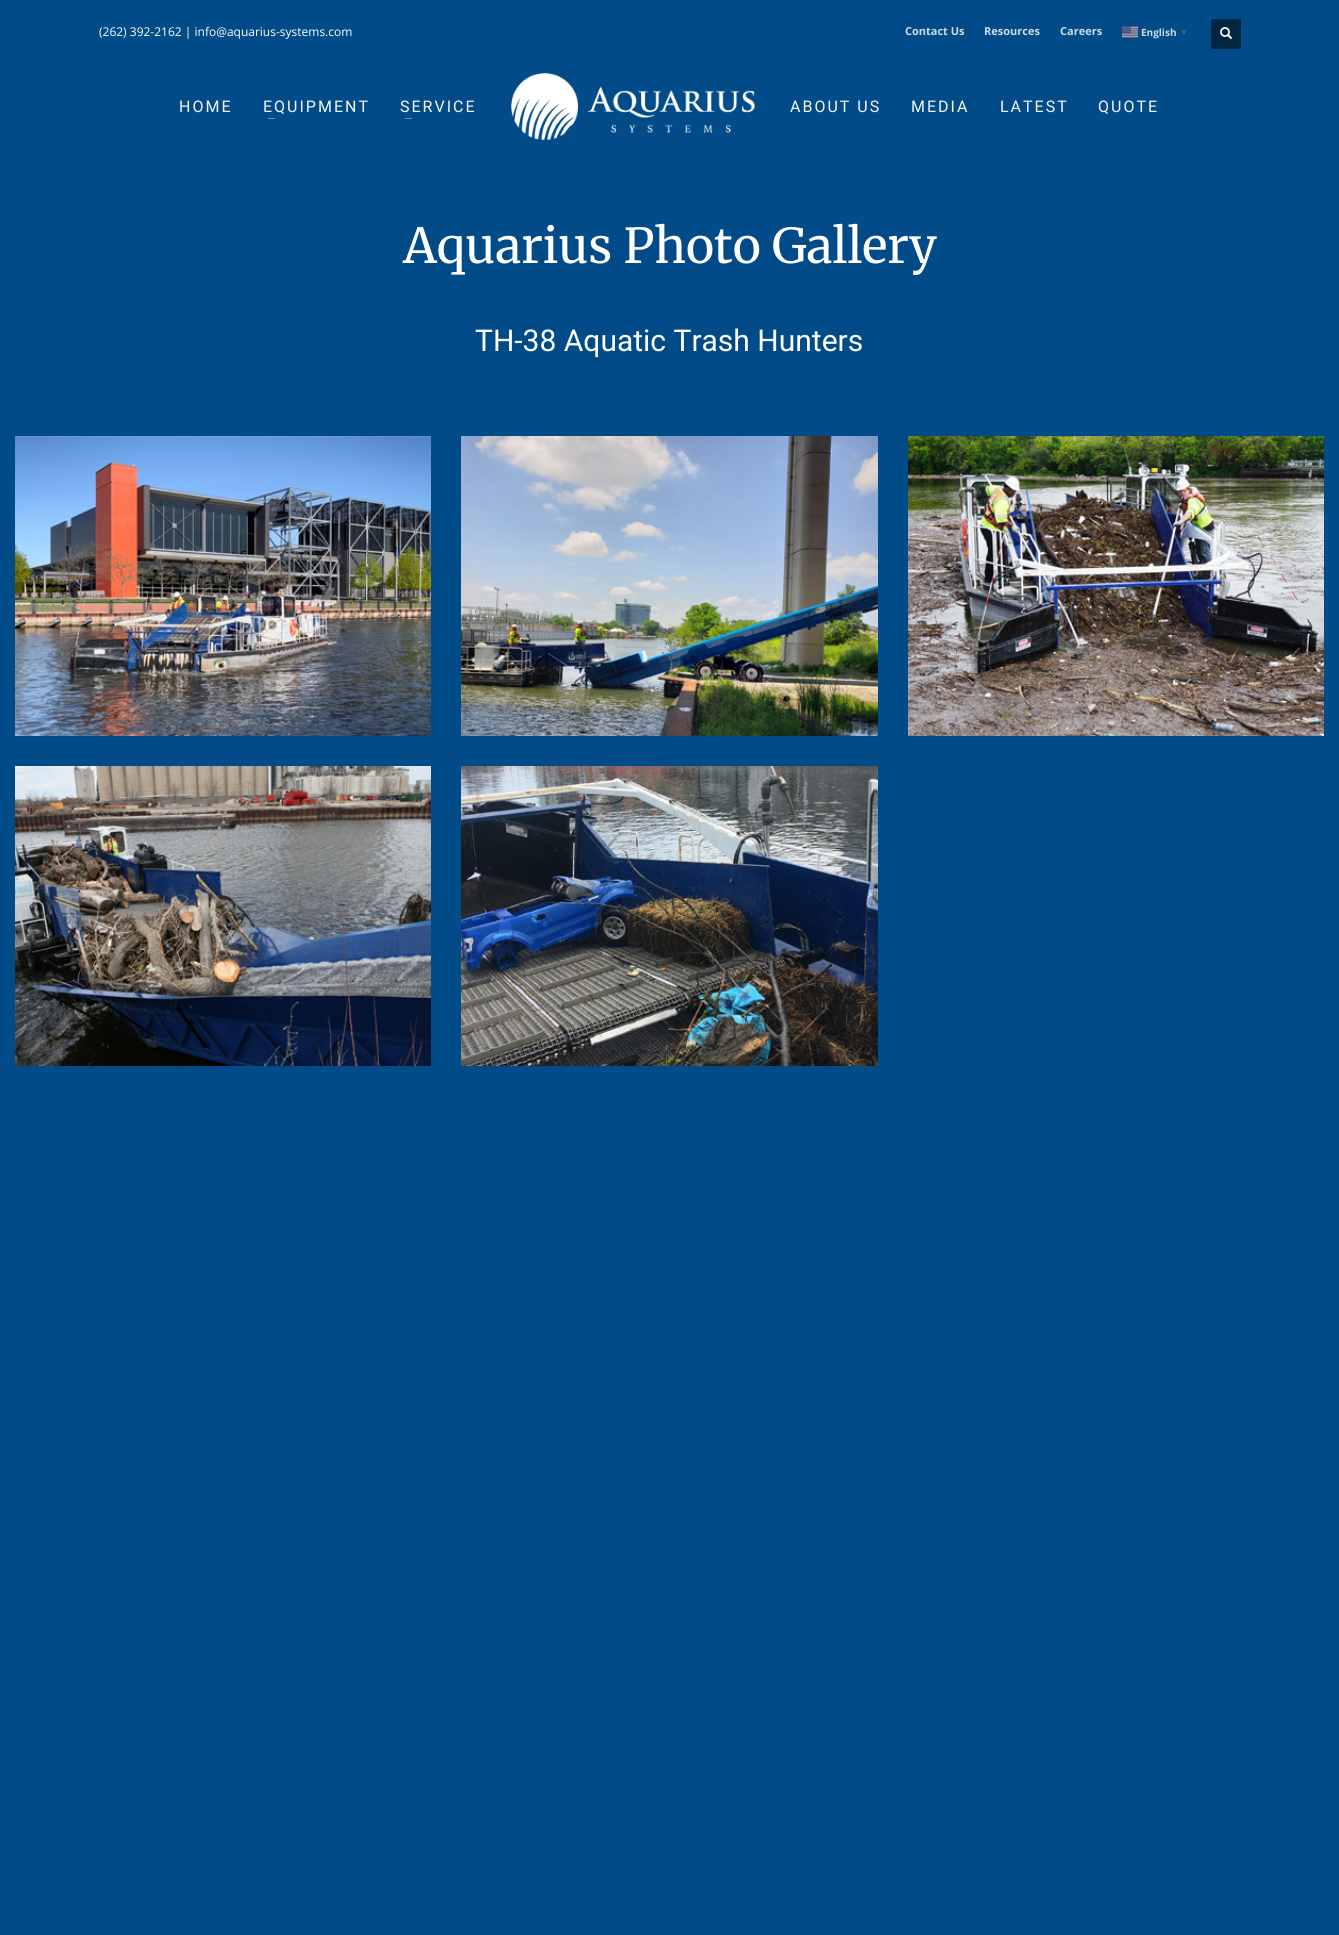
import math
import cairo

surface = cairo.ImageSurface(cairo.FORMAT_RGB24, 1339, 1935)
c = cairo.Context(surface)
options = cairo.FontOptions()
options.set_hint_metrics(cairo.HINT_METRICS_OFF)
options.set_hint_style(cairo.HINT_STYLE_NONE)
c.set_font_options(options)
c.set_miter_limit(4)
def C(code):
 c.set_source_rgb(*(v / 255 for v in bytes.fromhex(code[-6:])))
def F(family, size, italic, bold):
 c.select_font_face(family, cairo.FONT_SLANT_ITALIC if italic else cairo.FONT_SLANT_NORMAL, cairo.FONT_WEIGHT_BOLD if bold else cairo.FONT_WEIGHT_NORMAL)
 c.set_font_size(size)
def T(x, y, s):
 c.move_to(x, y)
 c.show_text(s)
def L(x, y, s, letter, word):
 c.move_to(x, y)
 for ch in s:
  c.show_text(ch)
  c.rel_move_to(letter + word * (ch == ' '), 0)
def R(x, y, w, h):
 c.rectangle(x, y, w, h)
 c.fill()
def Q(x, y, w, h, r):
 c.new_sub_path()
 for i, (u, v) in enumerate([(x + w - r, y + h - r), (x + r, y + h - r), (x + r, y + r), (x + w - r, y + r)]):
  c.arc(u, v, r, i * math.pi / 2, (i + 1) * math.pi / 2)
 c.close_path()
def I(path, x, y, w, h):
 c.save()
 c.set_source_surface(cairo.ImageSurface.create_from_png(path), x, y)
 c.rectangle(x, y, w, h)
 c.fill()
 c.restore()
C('014c88')
c.paint()
F('Open Sans',12,0,0)
C('ffffff')
T(99,36,'(262) 392-2162 | info@aquarius-systems.com')
F('Open Sans',11,0,1)
C('ccdbe7')
T(905,35,'Contact Us')
T(984,35,'Resources')
T(1060,35,'Careers')
I('1.png',1122,26,16,12)
F('Open Sans',10,0,1)
T(1141,36,'English')
F('Liberation Sans',8,0,1)
C('52616d')
T(1180,35,'▼')
C('012644')
Q(1211,19,30,30,2)
c.fill()
I('2.png',1220,27,12,12)
F('Roboto',16,0,0)
C('f5f5f5')
L(179,112,'HOME',2,0)
L(263,112,'EQUIPMENT',2,0)
C('6794b8')
R(268,118,7,1)
C('f5f5f5')
L(400,112,'SERVICE',2,0)
C('6794b8')
R(405,118,7,1)
I('3.png',511,73,244,67)
C('f5f5f5')
L(790,112,'ABOUT US',2,0)
L(911,112,'MEDIA',2,0)
L(1000,112,'LATEST',2,0)
L(1098,112,'QUOTE',2,0)
F('Merriweather',48,0,0)
C('ffffff')
T(403,263,'Aquarius Photo Gallery')
F('Roboto',30,0,0)
T(475,351,'TH-38 Aquatic Trash Hunters')
I('4.png',15,436,416,300)
I('5.png',461,436,417,300)
I('6.png',908,436,416,300)
I('7.png',15,766,416,300)
I('8.png',461,766,417,300)
surface.write_to_png('o.png')
